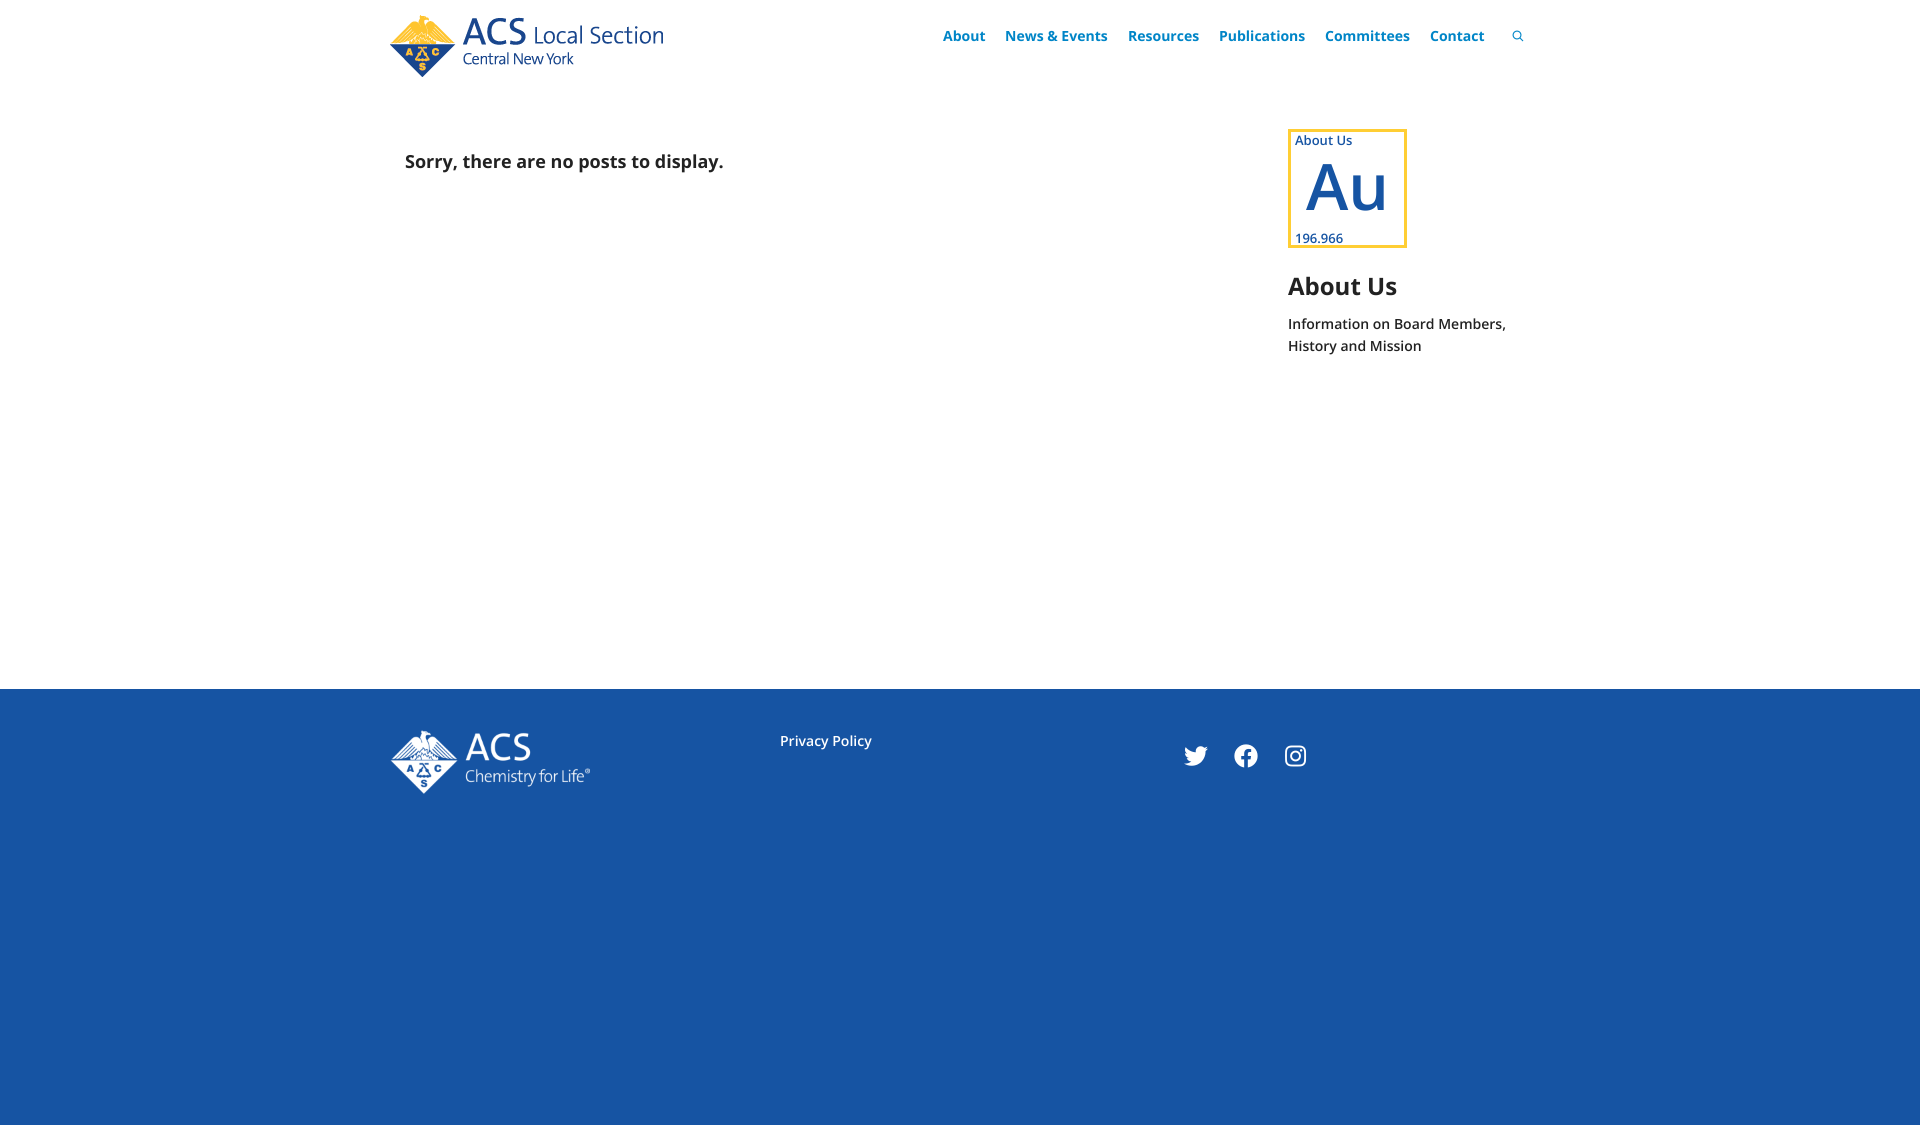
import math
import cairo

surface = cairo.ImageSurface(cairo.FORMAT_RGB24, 1920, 1125)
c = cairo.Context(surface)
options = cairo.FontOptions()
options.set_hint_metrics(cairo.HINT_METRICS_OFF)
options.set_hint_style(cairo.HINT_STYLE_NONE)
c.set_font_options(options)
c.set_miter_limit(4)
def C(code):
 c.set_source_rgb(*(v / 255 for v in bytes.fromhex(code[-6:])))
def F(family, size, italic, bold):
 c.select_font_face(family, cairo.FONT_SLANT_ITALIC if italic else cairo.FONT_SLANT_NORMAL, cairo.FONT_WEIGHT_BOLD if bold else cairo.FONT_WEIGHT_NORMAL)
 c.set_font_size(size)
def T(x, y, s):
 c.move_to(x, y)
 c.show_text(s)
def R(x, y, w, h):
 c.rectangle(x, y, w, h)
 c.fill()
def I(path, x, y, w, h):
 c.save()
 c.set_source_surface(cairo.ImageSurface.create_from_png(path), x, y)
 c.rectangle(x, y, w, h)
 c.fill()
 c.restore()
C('1654a3')
c.paint()
C('ffffff')
R(0,0,1920,689)
I('1.png',390,15,273,62)
F('Open Sans',14,0,1)
C('0085c7')
T(943,41,'About')
T(1005,41,'News & Events')
T(1128,41,'Resources')
T(1219,41,'Publications')
T(1325,41,'Committees')
T(1430,41,'Contact')
I('2.png',1512,30,12,12)
F('Open Sans',18,0,1)
C('222222')
T(405,168,'Sorry, there are no posts to display.')
c.rectangle(1289.5,130.5,116,116)
C('ffce34')
c.set_line_width(3)
c.stroke()
F('Open Sans SemiBold',13,0,0)
C('1654a3')
T(1295,145,'About Us')
F('Open Sans SemiBold',64,0,0)
T(1306,210,'Au')
F('Open Sans SemiBold',13,0,0)
T(1295,243,'196.966')
F('Open Sans',24,0,1)
C('222222')
T(1288,295,'About Us')
F('Open Sans SemiBold',14,0,0)
T(1288,329,'Information on Board Members,')
T(1288,351,'History and Mission')
I('3.png',390,730,200,64)
C('ffffff')
T(780,746,'Privacy Policy')
I('4.png',1184,746,24,20)
I('5.png',1234,744,24,24)
I('6.png',1285,745,22,22)
surface.write_to_png('o.png')
